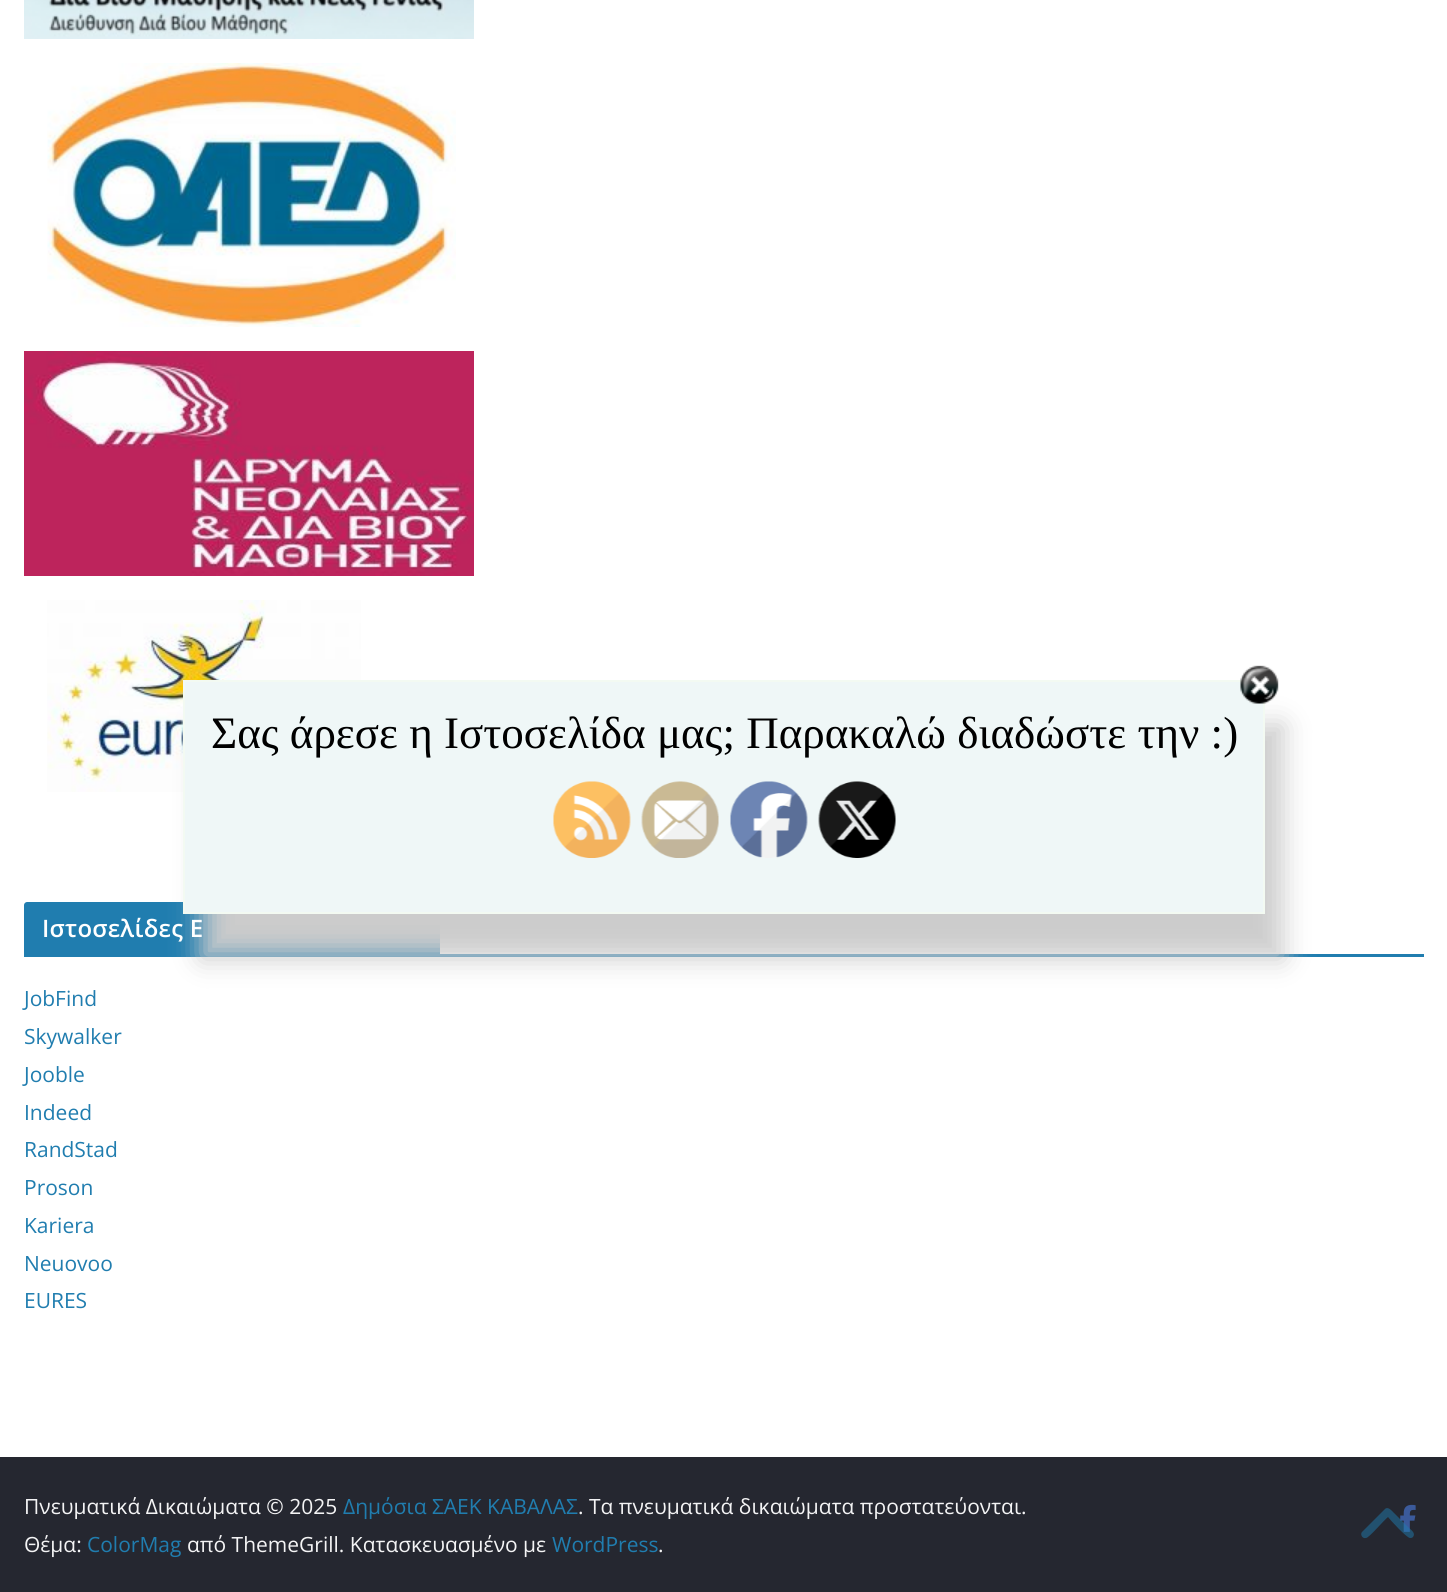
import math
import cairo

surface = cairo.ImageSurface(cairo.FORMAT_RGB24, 1447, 1592)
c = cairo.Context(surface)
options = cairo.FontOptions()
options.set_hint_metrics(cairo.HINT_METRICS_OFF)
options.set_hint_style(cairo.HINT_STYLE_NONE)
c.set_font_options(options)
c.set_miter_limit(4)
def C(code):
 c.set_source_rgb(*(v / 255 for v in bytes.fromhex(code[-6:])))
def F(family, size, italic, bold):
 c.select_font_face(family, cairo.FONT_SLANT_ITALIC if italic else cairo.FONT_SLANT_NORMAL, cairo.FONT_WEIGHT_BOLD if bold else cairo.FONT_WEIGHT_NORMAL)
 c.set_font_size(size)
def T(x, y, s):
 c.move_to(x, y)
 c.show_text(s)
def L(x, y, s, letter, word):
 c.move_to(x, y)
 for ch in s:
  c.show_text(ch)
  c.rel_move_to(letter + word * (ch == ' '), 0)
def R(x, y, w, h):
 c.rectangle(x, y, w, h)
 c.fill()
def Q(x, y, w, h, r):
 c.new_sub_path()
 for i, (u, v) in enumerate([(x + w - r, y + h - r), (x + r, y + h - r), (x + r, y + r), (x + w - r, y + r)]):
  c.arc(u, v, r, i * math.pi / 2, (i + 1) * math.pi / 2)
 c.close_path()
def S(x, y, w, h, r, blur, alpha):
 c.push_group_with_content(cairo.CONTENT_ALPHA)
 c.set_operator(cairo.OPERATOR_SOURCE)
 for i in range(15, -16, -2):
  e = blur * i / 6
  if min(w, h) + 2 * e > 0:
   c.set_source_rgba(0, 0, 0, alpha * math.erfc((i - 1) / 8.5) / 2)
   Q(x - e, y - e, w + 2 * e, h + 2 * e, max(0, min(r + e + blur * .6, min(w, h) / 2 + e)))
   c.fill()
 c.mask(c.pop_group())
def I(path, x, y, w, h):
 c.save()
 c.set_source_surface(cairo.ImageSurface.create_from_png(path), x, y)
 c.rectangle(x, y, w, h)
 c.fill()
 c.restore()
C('ffffff')
c.paint()
I('9.png',47,600,314,192)
C('207daf')
R(24,954,1400,3)
c.new_path()
c.move_to(27,902)
c.line_to(437,902)
c.curve_to(438.5,902,440,903.5,440,905)
c.line_to(440,954)
c.line_to(24,954)
c.line_to(24,905)
c.curve_to(24,903.5,25.5,902,27,902)
c.close_path()
c.fill()
C('cccccc')
S(201,725,1082,234,0,13.5,1)
C('eff7f7')
c.rectangle(184,681,1080,232)
c.fill_preserve()
C('f3faf2')
c.stroke()
I('1.png',1240,665,39,39)
F('Liberation Serif',45,0,0)
C('000000')
T(211,748,'Σας άρεσε η Ιστοσελίδα μας; Παρακαλώ διαδώστε την :)')
I('2.png',553,781,78,77)
I('3.png',641,781,78,77)
I('4.png',730,781,78,77)
I('5.png',818,781,78,77)
I('6.png',24,0,450,39)
I('7.png',47,63,409,264)
I('8.png',24,351,450,225)
F('Open Sans SemiBold',24,0,0)
C('ffffff')
L(42,937,'Ιστοσελίδες Ε',.25,0)
F('Open Sans',21,0,0)
C('207daf')
T(24,1006,'JobFind')
T(24,1044,'Skywalker')
T(24,1082,'Jooble')
T(24,1120,'Indeed')
T(24,1157,'RandStad')
T(24,1195,'Proson')
T(24,1233,'Kariera')
T(24,1271,'Neuovoo')
T(24,1308,'EURES')
C('252730')
R(0,1457,1447,135)
C('f4f4f5')
T(24,1514,'Πνευματικά Δικαιώματα © 2025')
C('207daf')
T(343,1514,'Δημόσια ΣΑΕΚ ΚΑΒΑΛΑΣ')
C('f4f4f5')
T(578,1514,'. Τα πνευματικά δικαιώματα προστατεύονται.')
T(24,1552,'Θέμα:')
C('207daf')
T(87,1552,'ColorMag')
C('f4f4f5')
T(187,1552,'από ThemeGrill. Κατασκευασμένο με')
C('207daf')
T(552,1552,'WordPress')
C('f4f4f5')
T(658,1552,'.')
I('10.png',1400,1504,16,28)
c.set_source_rgba(0.125,0.49,0.686,0.5)
c.new_path()
c.move_to(1385,1509)
c.curve_to(1388,1506,1392,1511,1394,1513)
c.line_to(1409,1528)
c.curve_to(1411,1530,1416,1533,1413,1537)
c.curve_to(1412,1538,1411,1538,1410,1538)
c.curve_to(1407,1538,1391,1521,1388,1517)
c.curve_to(1384,1520,1369,1538,1366,1538)
c.curve_to(1362,1539,1360,1534,1362,1532)
c.close_path()
c.fill()
surface.write_to_png('o.png')
